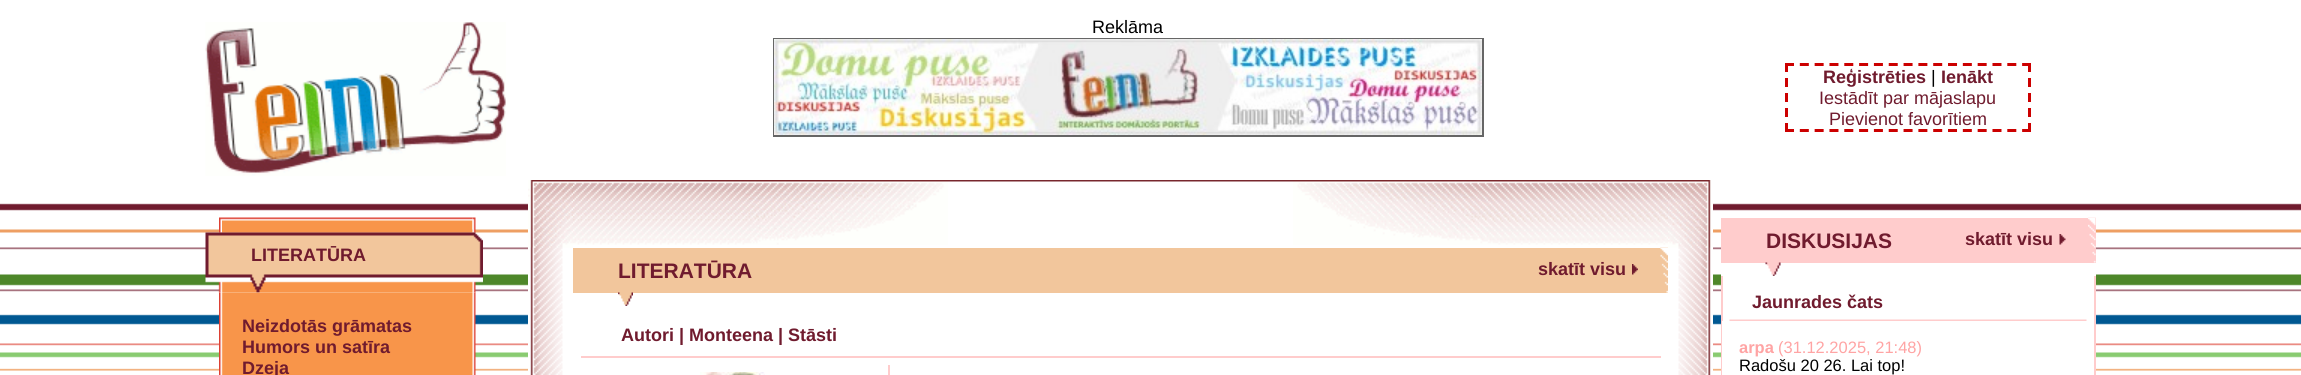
import math
import cairo

surface = cairo.ImageSurface(cairo.FORMAT_RGB24, 2301, 375)
c = cairo.Context(surface)
options = cairo.FontOptions()
options.set_hint_metrics(cairo.HINT_METRICS_OFF)
options.set_hint_style(cairo.HINT_STYLE_NONE)
c.set_font_options(options)
c.set_miter_limit(4)
def C(code):
 c.set_source_rgb(*(v / 255 for v in bytes.fromhex(code[-6:])))
def F(family, size, italic, bold):
 c.select_font_face(family, cairo.FONT_SLANT_ITALIC if italic else cairo.FONT_SLANT_NORMAL, cairo.FONT_WEIGHT_BOLD if bold else cairo.FONT_WEIGHT_NORMAL)
 c.set_font_size(size)
def T(x, y, s):
 c.move_to(x, y)
 c.show_text(s)
def R(x, y, w, h):
 c.rectangle(x, y, w, h)
 c.fill()
def I(path, x, y, w, h):
 c.save()
 c.set_source_surface(cairo.ImageSurface.create_from_png(path), x, y)
 c.rectangle(x, y, w, h)
 c.fill()
 c.restore()
C('ffffff')
c.paint()
I('1.png',0,203,2301,168)
I('2.png',205,22,301,154)
F('Liberation Sans',18,0,0)
C('000000')
T(1092,33,'Reklāma')
c.rectangle(774,39,709,97)
C('666666')
c.stroke()
I('3.png',774,39,708,96)
c.new_path()
c.move_to(1785,64.5)
c.line_to(2031,64.5)
C('cc0000')
c.set_line_width(3)
c.set_dash([9,5.82])
c.stroke()
c.new_path()
c.move_to(2029.5,63)
c.line_to(2029.5,132)
c.set_dash([9,6])
c.stroke()
c.new_path()
c.move_to(1785,130.5)
c.line_to(2031,130.5)
c.set_dash([9,5.82])
c.stroke()
c.new_path()
c.move_to(1786.5,63)
c.line_to(1786.5,132)
c.set_dash([9,6])
c.stroke()
F('Liberation Sans',18,0,1)
C('701b2e')
T(1823,83,'Reģistrēties')
F('Liberation Sans',18,0,0)
C('000000')
T(1931,83,'|')
F('Liberation Sans',18,0,1)
C('701b2e')
T(1941,83,'Ienākt')
F('Liberation Sans',18,0,0)
T(1819,104,'Iestādīt par mājaslapu')
T(1829,125,'Pievienot favorītiem')
I('4.png',219,217,3,16)
I('5.png',222,217,251,16)
I('6.png',472,217,4,16)
I('7.png',205,232,278,61)
F('Liberation Sans',18,0,1)
T(251,261,'LITERATŪRA')
I('8.png',219,292,257,83)
T(242,332,'Neizdotās grāmatas')
T(242,353,'Humors un satīra')
T(242,374,'Dzeja')
I('9.png',528,247,45,128)
I('10.png',528,180,45,68)
C('ffffff')
R(573,203,1095,168)
I('11.png',573,180,375,65)
I('12.png',948,180,345,2)
I('13.png',1293,180,375,65)
C('f2c69c')
R(573,248,1095,45)
F('Liberation Sans',21,0,1)
C('701b2e')
T(618,278,'LITERATŪRA')
I('14.png',1632,264,6,11)
F('Liberation Sans',18,0,1)
T(1538,275,'skatīt visu')
I('15.png',1660,247,8,46)
I('16.png',618,292,15,14)
T(621,341,'Autori | Monteena | Stāsti')
C('ffcccc')
R(581,356,1080,2)
I('17.png',700,372,65,3)
R(888,365,2,10)
I('18.png',1668,180,45,195)
I('19.png',1668,180,43,68)
C('ffffff')
R(1721,274,375,2)
C('ffcccc')
R(1721,218,375,45)
F('Liberation Sans',21,0,1)
C('701b2e')
T(1766,248,'DISKUSIJAS')
I('20.png',2059,234,7,11)
F('Liberation Sans',18,0,1)
T(1965,245,'skatīt visu')
I('21.png',2088,217,8,46)
I('22.png',1765,262,16,14)
C('ffffff')
R(1723,276,371,45)
C('ffcccc')
R(2094,276,2,99)
R(1721,276,2,99)
C('701b2e')
T(1752,308,'Jaunrades čats')
I('23.png',1729,319,358,2)
C('ffffff')
R(1722,321,372,54)
F('Liberation Sans',16.5,0,1)
C('ffa4a4')
T(1739,353,'arpa')
F('Liberation Sans',16.5,0,0)
T(1778,353,'(31.12.2025, 21:48)')
C('000000')
T(1739,371,'Radošu 20 26. Lai top!')
surface.write_to_png('o.png')
